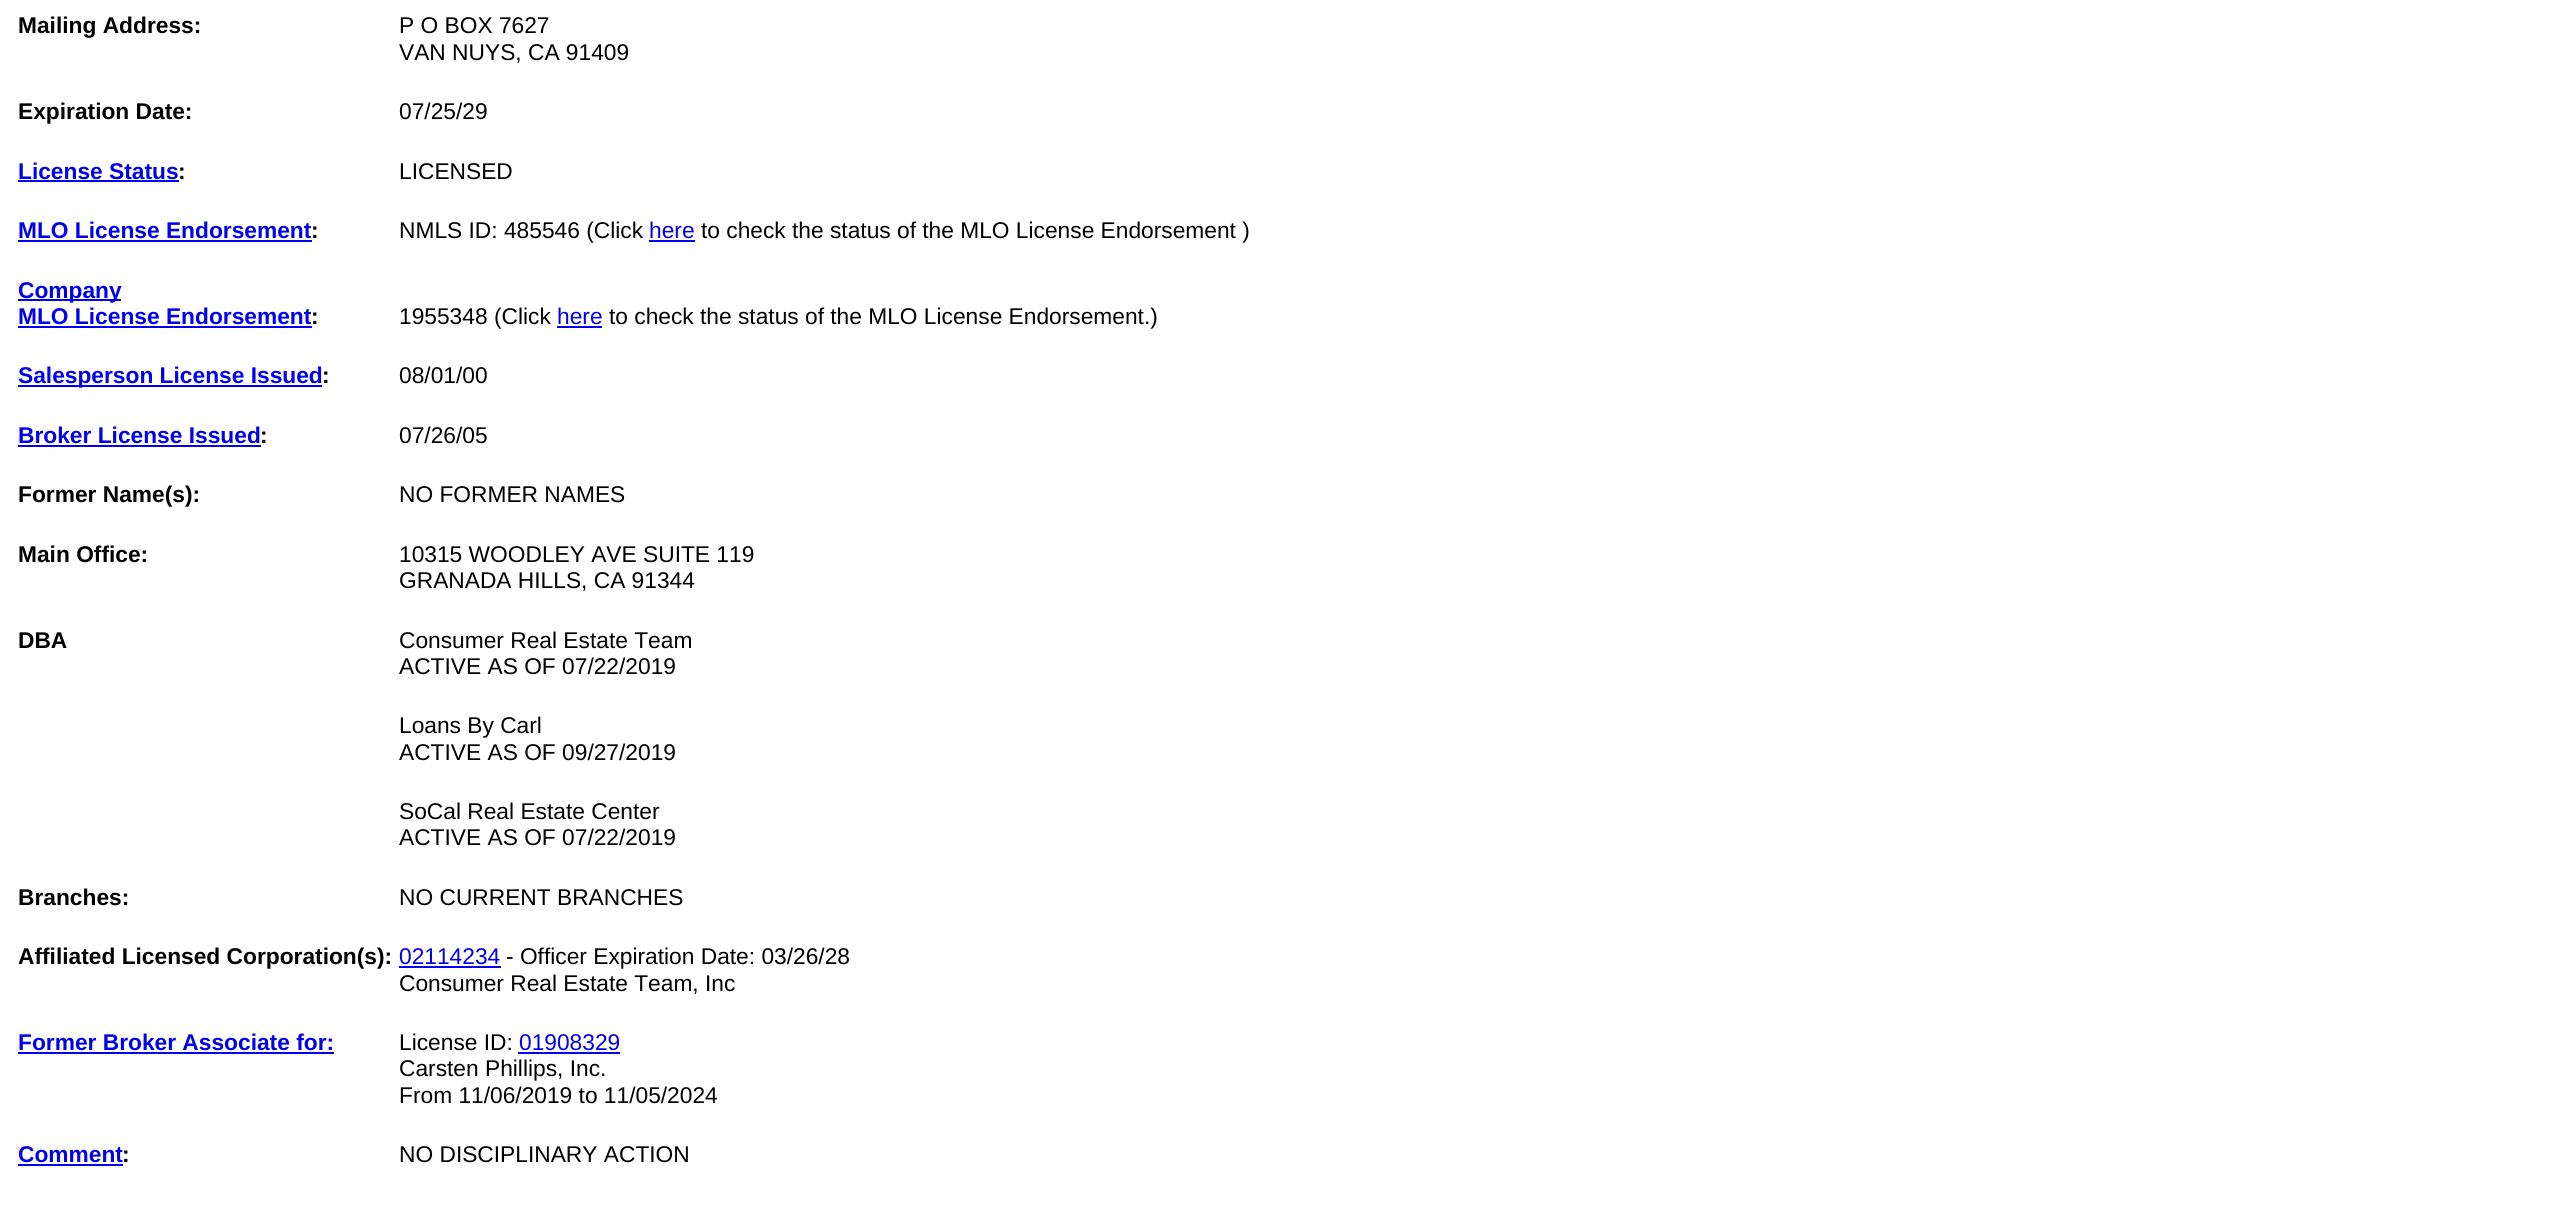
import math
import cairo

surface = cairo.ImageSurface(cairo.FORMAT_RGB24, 2575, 1205)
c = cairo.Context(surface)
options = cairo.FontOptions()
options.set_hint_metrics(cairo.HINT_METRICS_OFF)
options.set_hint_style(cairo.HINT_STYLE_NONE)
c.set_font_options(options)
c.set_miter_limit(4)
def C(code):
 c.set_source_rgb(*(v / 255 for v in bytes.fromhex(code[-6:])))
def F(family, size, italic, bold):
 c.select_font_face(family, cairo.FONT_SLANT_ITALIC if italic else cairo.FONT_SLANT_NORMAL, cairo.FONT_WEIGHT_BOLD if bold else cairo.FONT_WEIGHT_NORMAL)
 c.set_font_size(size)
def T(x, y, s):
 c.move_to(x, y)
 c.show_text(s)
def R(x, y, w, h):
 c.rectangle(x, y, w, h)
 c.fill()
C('ffffff')
c.paint()
F('Liberation Sans',22.75,0,1)
C('000000')
T(18,33,'Mailing Address:')
F('Liberation Sans',22.75,0,0)
T(399,33,'P O BOX 7627')
T(399,60,'VAN NUYS, CA 91409')
F('Liberation Sans',22.75,0,1)
T(18,119,'Expiration Date:')
F('Liberation Sans',22.75,0,0)
T(399,119,'07/25/29')
F('Liberation Sans',22.75,0,1)
C('0000ee')
T(18,179,'License Status')
C('000000')
T(178,179,':')
C('0000ee')
R(18,180,161,2)
F('Liberation Sans',22.75,0,0)
C('000000')
T(399,179,'LICENSED')
F('Liberation Sans',22.75,0,1)
C('0000ee')
T(18,238,'MLO License Endorsement')
C('000000')
T(311,238,':')
C('0000ee')
R(18,240,294,2)
F('Liberation Sans',22.75,0,0)
C('000000')
T(399,238,'NMLS ID: 485546 (Click')
C('0000ee')
T(649,238,'here')
R(649,240,46,2)
C('000000')
T(701,238,'to check the status of the MLO License Endorsement )')
C('0000ee')
R(18,299,103,2)
F('Liberation Sans',22.75,0,1)
T(18,298,'Company')
T(18,324,'MLO License Endorsement')
C('000000')
T(311,324,':')
C('0000ee')
R(18,326,294,2)
F('Liberation Sans',22.75,0,0)
C('000000')
T(399,324,'1955348 (Click')
C('0000ee')
T(557,324,'here')
R(557,326,45,2)
C('000000')
T(609,324,'to check the status of the MLO License Endorsement.)')
C('0000ee')
R(18,385,304,2)
F('Liberation Sans',22.75,0,1)
T(18,383,'Salesperson License Issued')
C('000000')
T(322,383,':')
F('Liberation Sans',22.75,0,0)
T(399,383,'08/01/00')
F('Liberation Sans',22.75,0,1)
C('0000ee')
T(18,443,'Broker License Issued')
C('000000')
T(260,443,':')
C('0000ee')
R(18,445,243,2)
F('Liberation Sans',22.75,0,0)
C('000000')
T(399,443,'07/26/05')
F('Liberation Sans',22.75,0,1)
T(18,502,'Former Name(s):')
F('Liberation Sans',22.75,0,0)
T(399,502,'NO FORMER NAMES')
F('Liberation Sans',22.75,0,1)
T(18,562,'Main Office:')
F('Liberation Sans',22.75,0,0)
T(399,562,'10315 WOODLEY AVE SUITE 119')
T(399,588,'GRANADA HILLS, CA 91344')
F('Liberation Sans',22.75,0,1)
T(18,648,'DBA')
F('Liberation Sans',22.75,0,0)
T(399,648,'Consumer Real Estate Team')
T(399,674,'ACTIVE AS OF 07/22/2019')
T(399,733,'Loans By Carl')
T(399,760,'ACTIVE AS OF 09/27/2019')
T(399,819,'SoCal Real Estate Center')
T(399,845,'ACTIVE AS OF 07/22/2019')
F('Liberation Sans',22.75,0,1)
T(18,905,'Branches:')
F('Liberation Sans',22.75,0,0)
T(399,905,'NO CURRENT BRANCHES')
F('Liberation Sans',22.75,0,1)
T(18,964,'Affiliated Licensed Corporation(s):')
F('Liberation Sans',22.75,0,0)
C('0000ee')
T(399,964,'02114234')
R(399,966,102,2)
C('000000')
T(506,964,'- Officer Expiration Date: 03/26/28')
T(399,991,'Consumer Real Estate Team, Inc')
F('Liberation Sans',22.75,0,1)
C('0000ee')
T(18,1050,'Former Broker Associate for:')
R(18,1052,316,2)
F('Liberation Sans',22.75,0,0)
C('000000')
T(399,1050,'License ID:')
C('0000ee')
T(519,1050,'01908329')
R(518,1052,102,2)
C('000000')
T(399,1076,'Carsten Phillips, Inc.')
T(399,1103,'From 11/06/2019 to 11/05/2024')
F('Liberation Sans',22.75,0,1)
C('0000ee')
T(18,1162,'Comment')
C('000000')
T(122,1162,':')
C('0000ee')
R(18,1164,105,2)
F('Liberation Sans',22.75,0,0)
C('000000')
T(399,1162,'NO DISCIPLINARY ACTION')
surface.write_to_png('o.png')
